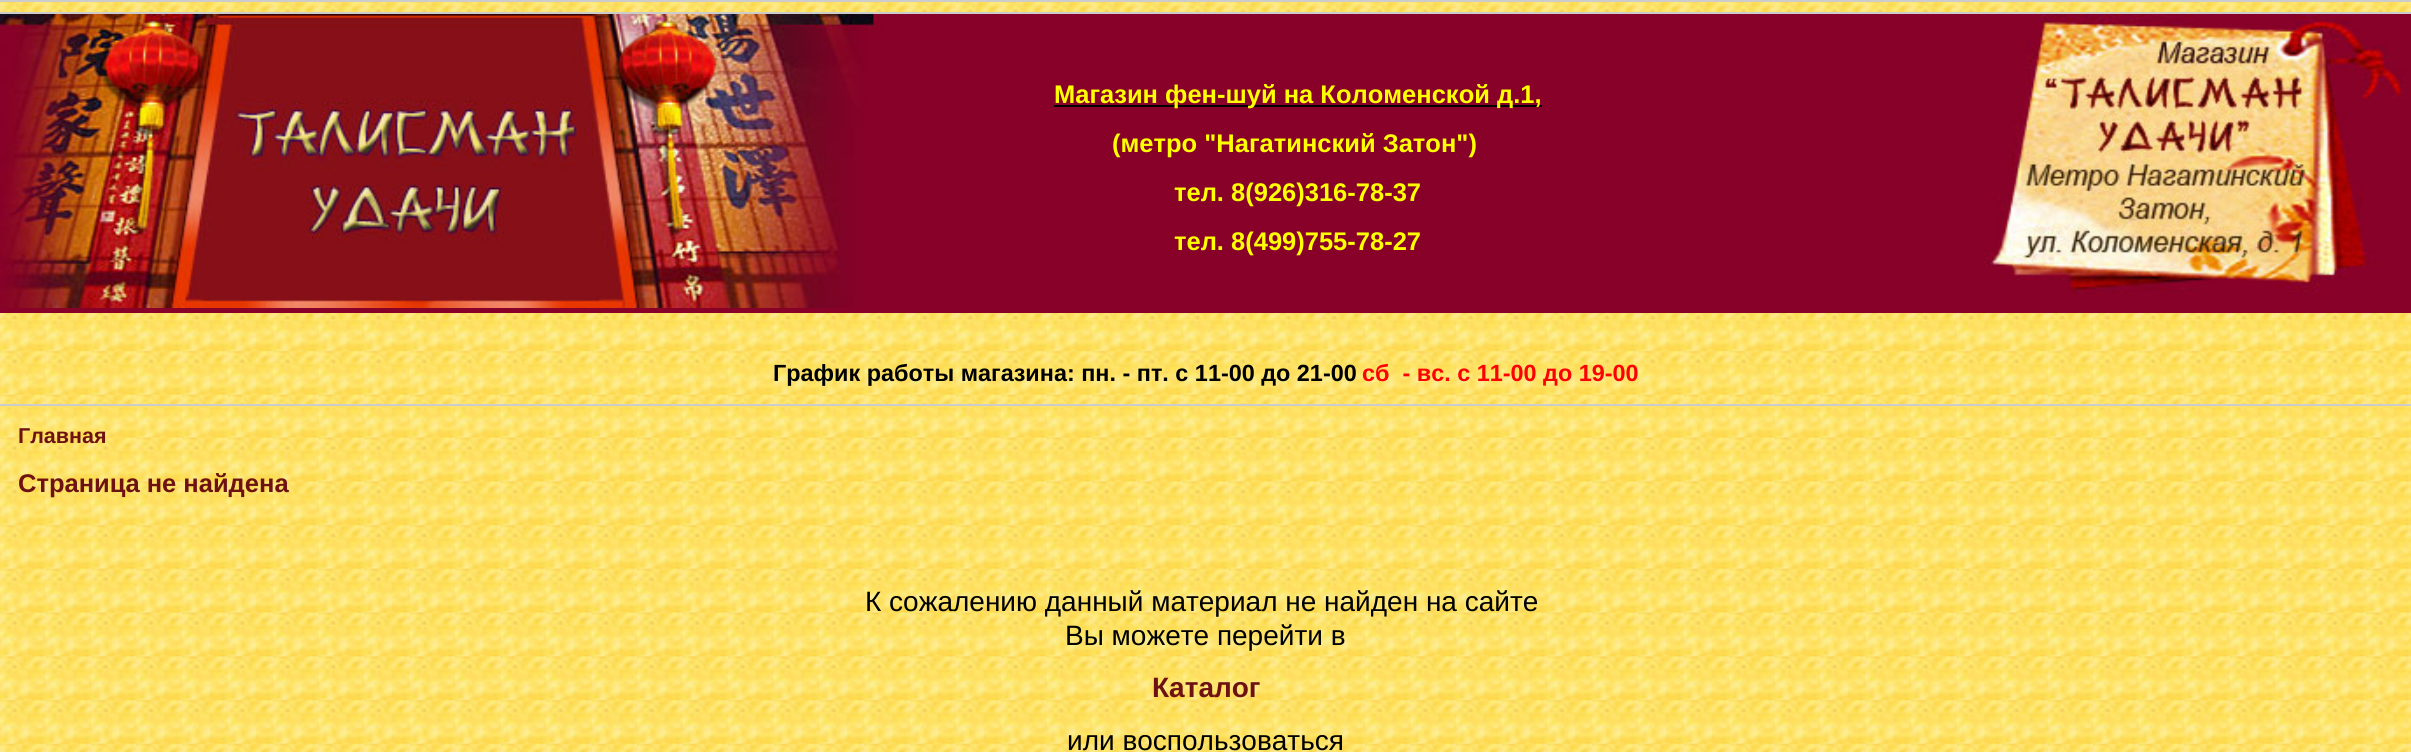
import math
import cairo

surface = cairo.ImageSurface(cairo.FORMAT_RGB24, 2411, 752)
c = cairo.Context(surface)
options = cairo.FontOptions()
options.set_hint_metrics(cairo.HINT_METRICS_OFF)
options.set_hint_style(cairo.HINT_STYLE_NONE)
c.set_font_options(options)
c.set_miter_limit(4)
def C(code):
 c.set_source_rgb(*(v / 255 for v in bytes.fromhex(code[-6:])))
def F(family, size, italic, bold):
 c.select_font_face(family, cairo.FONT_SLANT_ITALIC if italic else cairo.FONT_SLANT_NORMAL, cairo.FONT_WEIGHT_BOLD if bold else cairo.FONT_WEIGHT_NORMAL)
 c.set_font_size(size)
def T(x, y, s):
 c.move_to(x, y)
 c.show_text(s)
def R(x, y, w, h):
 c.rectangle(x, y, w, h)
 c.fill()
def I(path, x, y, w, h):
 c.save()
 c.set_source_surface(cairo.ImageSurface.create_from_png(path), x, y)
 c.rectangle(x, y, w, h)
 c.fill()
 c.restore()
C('ffffff')
c.paint()
I('1.png',0,406,2411,346)
I('2.png',0,2,2411,402)
C('cccccc')
R(0,0,2411,2)
R(0,12,2411,2)
C('870128')
R(0,14,2411,299)
I('3.png',0,14,882,294)
C('000000')
R(1054,105,488,2)
F('Liberation Sans',25.5,0,1)
C('ffff00')
T(1054,103,'Магазин фен-шуй на Коломенской д.1,')
T(1112,152,'(метро "Нагатинский Затон")')
T(1174,201,'тел. 8(926)316-78-37')
T(1174,250,'тел. 8(499)755-78-27')
I('4.png',1984,14,421,280)
F('Liberation Sans',23.4,0,1)
C('000000')
T(773,381,'График работы магазина: пн. - пт. с 11-00 до 21-00')
C('ff0000')
T(1362,381,'сб  - вс. с 11-00 до 19-00')
C('cccccc')
R(0,404,2411,2)
F('Liberation Sans',21.5,0,1)
C('6e1111')
T(18,443,'Главная')
F('Liberation Sans',25.5,0,1)
T(18,492,'Страница не найдена')
F('Liberation Sans',28,0,0)
C('000000')
T(865,611,'К сожалению данный материал не найден на сайте')
T(1065,645,'Вы можете перейти в')
F('Liberation Sans',28,0,1)
C('6e1111')
T(1152,697,'Каталог')
F('Liberation Sans',28,0,0)
C('000000')
T(1067,750,'или воспользоваться')
surface.write_to_png('o.png')
